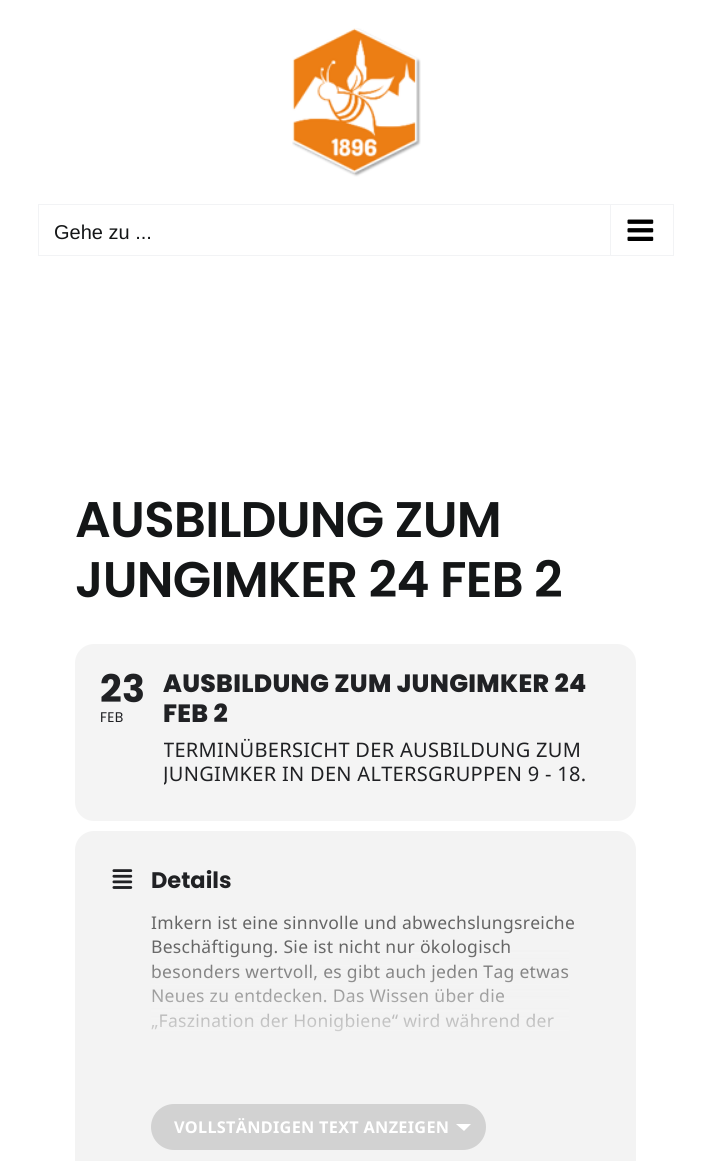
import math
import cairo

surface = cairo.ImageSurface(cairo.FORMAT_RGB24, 711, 1161)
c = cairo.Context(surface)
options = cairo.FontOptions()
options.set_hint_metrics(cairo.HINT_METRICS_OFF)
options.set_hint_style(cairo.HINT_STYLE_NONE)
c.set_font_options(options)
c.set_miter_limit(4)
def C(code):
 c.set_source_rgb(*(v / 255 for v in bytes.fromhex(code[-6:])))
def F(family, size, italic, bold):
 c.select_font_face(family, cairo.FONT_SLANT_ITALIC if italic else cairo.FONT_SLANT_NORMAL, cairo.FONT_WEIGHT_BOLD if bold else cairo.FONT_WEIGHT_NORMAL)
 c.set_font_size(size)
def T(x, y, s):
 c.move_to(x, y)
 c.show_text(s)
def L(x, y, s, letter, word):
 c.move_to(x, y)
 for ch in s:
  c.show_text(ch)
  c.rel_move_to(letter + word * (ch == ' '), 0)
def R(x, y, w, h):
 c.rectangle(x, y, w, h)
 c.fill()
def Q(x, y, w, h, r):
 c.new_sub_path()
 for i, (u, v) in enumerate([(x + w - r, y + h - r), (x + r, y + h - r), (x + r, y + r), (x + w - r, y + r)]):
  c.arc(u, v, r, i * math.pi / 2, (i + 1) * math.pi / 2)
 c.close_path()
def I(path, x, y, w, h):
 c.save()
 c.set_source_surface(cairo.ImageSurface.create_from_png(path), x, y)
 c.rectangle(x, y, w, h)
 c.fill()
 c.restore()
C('ffffff')
c.paint()
I('1.png',292,28,129,149)
c.rectangle(38.5,204.5,635,51)
C('f2f3f5')
c.set_line_width(1)
c.stroke()
F('Liberation Sans',20,0,0)
C('141617')
T(54,239,'Gehe zu ...')
C('f2f3f5')
R(610,205,1,50)
I('2.png',627,219,27,22)
F('Poppins SemiBold',50,0,0)
C('141617')
L(75,537,'AUSBILDUNG ZUM',-.75,0)
L(75,597,'JUNGIMKER 24 FEB 2',-.75,0)
C('f4f4f4')
Q(75,644,561,177,19)
c.fill()
F('Poppins',38,0,1)
C('202124')
L(100,702,'23',.3,0)
F('Poppins',14,0,0)
L(100,722,'FEB',.3,0)
F('Poppins ExtraBold',25,0,0)
L(163,692,'AUSBILDUNG ZUM JUNGIMKER 24',.3,0)
L(163,722,'FEB 2',.3,0)
c.save()
c.rectangle(164,669,429,127)
c.clip()
F('Noto Sans',20,0,0)
L(163,757,'TERMINÜBERSICHT DER AUSBILDUNG ZUM',.3,0)
L(163,781,'JUNGIMKER IN DEN ALTERSGRUPPEN 9 - 18.',.3,0)
c.restore()
C('f3f3f3')
Q(75,831,561,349,19)
c.fill()
I('3.png',112,869,21,20)
F('Poppins',22.5,0,1)
C('202124')
T(151,888,'Details')
F('Noto Sans',17.5,0,0)
C('656565')
L(151,929,'Imkern ist eine sinnvolle und abwechslungsreiche',.3,0)
L(151,953,'Beschäftigung. Sie ist nicht nur ökologisch',.3,0)
L(151,978,'besonders wertvoll, es gibt auch jeden Tag etwas',.3,0)
L(151,1002,'Neues zu entdecken. Das Wissen über die',.3,0)
L(151,1027,'„Faszination der Honigbiene“ wird während der',.3,0)
gradient = cairo.LinearGradient(375,1098,375,910)
gradient.add_color_stop_rgba(.2,0.953,0.953,0.953,1)
gradient.add_color_stop_rgba(.8,0.953,0.953,0.953,0)
c.set_source(gradient)
R(151,950,418,82)
C('d2d2d2')
Q(151,1104,335,46,23)
c.fill()
F('Noto Sans',16.25,0,1)
C('ffffff')
L(174,1133,'VOLLSTÄNDIGEN TEXT ANZEIGEN',.3,0)
c.new_path()
c.move_to(456,1124)
c.line_to(471,1124)
c.line_to(464,1131)
c.close_path()
c.fill()
surface.write_to_png('o.png')
